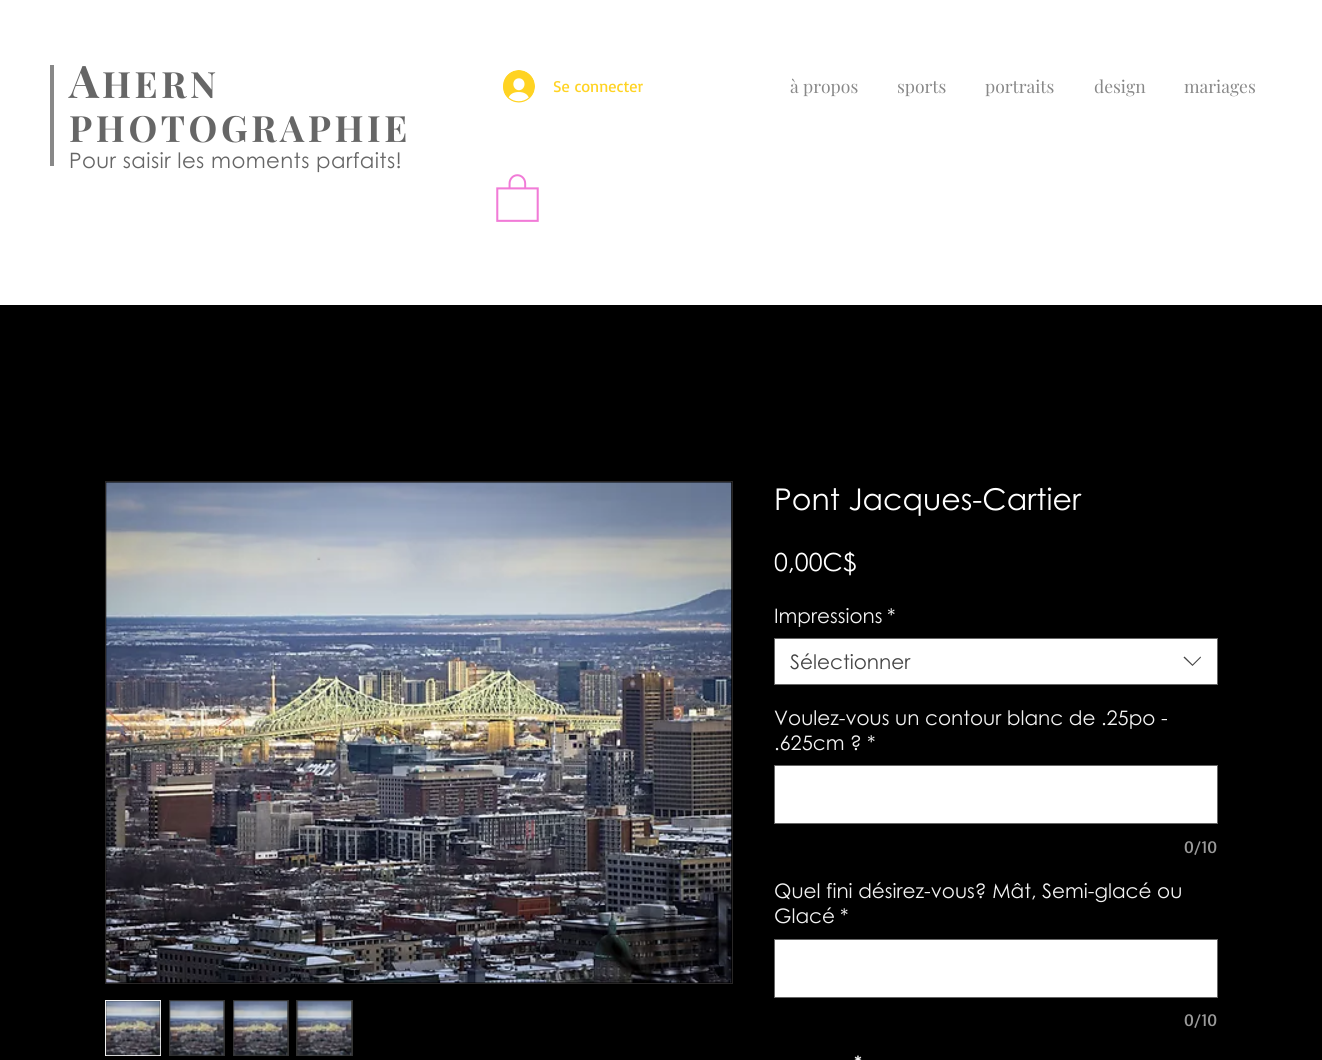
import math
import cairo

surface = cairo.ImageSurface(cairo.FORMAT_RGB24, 1322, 1060)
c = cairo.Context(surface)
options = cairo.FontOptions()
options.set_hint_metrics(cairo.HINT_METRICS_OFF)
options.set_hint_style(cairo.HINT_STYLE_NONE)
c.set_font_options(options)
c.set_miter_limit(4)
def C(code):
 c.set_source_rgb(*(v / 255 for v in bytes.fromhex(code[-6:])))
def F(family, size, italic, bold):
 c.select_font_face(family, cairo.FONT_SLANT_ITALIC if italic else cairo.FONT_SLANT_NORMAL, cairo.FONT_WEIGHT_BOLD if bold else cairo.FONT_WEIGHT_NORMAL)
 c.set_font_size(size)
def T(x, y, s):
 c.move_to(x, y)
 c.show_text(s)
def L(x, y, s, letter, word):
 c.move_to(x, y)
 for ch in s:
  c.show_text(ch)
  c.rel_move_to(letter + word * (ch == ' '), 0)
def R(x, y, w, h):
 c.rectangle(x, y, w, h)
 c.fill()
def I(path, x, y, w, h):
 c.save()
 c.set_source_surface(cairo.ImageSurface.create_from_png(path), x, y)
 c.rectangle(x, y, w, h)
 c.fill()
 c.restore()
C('ffffff')
c.paint()
C('888888')
R(50,65,4,101)
F('Playfair Display',45,0,1)
C('666666')
L(69,98,'A',3.6,0)
F('Playfair Display',36.25,0,1)
L(102,98,'HERN',3.6,0)
L(69,142,'PHOTOGRAPHIE',3.6,0)
I('1.png',503,70,32,33)
F('Basic',16.25,0,0)
C('ffd323')
T(553,92,'Se connecter')
F('Playfair Display',17.5,0,0)
C('888888')
T(790,93,'à propos')
T(897,93,'sports')
T(985,93,'portraits')
T(1094,93,'design')
T(1184,93,'mariages')
F('Century Gothic',21.25,0,0)
C('666666')
L(69,168,'Pour saisir les moments parfaits!',.4,0)
I('2.png',496,174,43,48)
C('000000')
R(0,305,1322,755)
c.rectangle(105.5,481.5,627,502)
C('282626')
c.set_line_width(1)
c.stroke()
I('3.png',106,482,626,501)
C('333333')
c.rectangle(105.5,1000.5,55,55)
c.fill_preserve()
C('f2f2f2')
c.stroke()
I('4.png',106,1001,55,55)
C('333333')
R(169,1000,56,56)
I('5.png',169,1001,56,55)
R(233,1000,56,56)
I('6.png',233,1001,55,55)
R(296,1000,57,56)
I('7.png',297,1001,55,55)
F('Century Gothic',30,0,0)
C('ffffff')
T(774,510,'Pont Jacques-Cartier')
F('Century Gothic',25,0,0)
T(774,571,'0,00C$')
F('Century Gothic',20,0,0)
C('f2f2f2')
T(774,623,'Impressions')
T(887,623,'*')
C('ffffff')
c.rectangle(774.5,638.5,443,46)
c.fill_preserve()
C('666666')
c.stroke()
C('444444')
T(790,669,'Sélectionner')
c.set_fill_rule(cairo.FILL_RULE_EVEN_ODD)
c.new_path()
c.move_to(1200.5,656.5)
c.line_to(1201,657.5)
c.line_to(1192.5,666)
c.line_to(1183.5,657.5)
c.line_to(1184.5,656.5)
c.line_to(1192.5,664.5)
c.close_path()
c.fill()
C('f2f2f2')
T(774,725,'Voulez-vous un contour blanc de .25po -')
T(774,750,'.625cm ?')
T(867,750,'*')
C('ffffff')
c.rectangle(774.5,765.5,443,58)
c.fill_preserve()
C('666666')
c.stroke()
F('Basic',17.5,0,0)
C('999999')
T(1184,853,'0/10')
F('Century Gothic',20,0,0)
C('f2f2f2')
T(774,898,'Quel fini désirez-vous? Mât, Semi-glacé ou')
T(774,923,'Glacé')
T(840,923,'*')
C('ffffff')
c.rectangle(774.5,939.5,443,58)
c.fill_preserve()
C('666666')
c.stroke()
F('Basic',17.5,0,0)
C('999999')
T(1184,1026,'0/10')
F('Century Gothic',17.5,0,1)
C('f2f2f2')
T(854,1069,'*')
surface.write_to_png('o.png')
